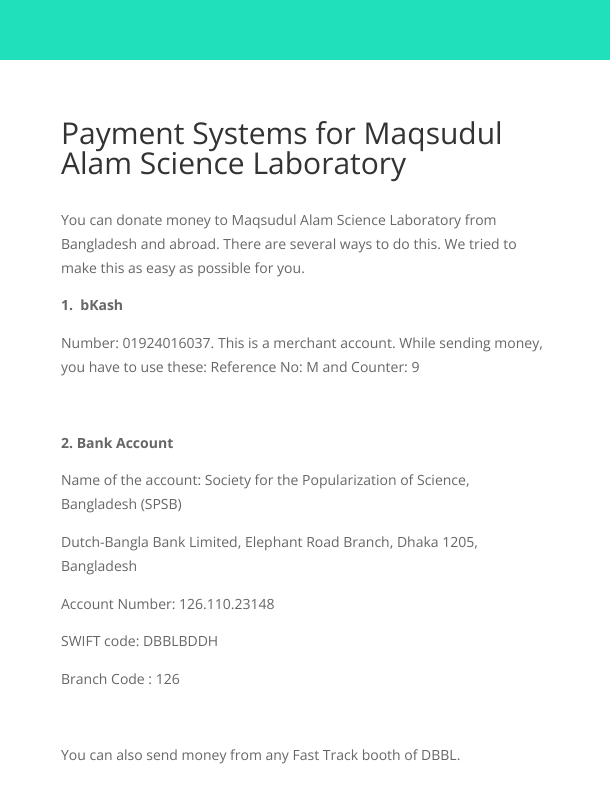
import math
import cairo

surface = cairo.ImageSurface(cairo.FORMAT_RGB24, 610, 812)
c = cairo.Context(surface)
options = cairo.FontOptions()
options.set_hint_metrics(cairo.HINT_METRICS_OFF)
options.set_hint_style(cairo.HINT_STYLE_NONE)
c.set_font_options(options)
c.set_miter_limit(4)
def C(code):
 c.set_source_rgb(*(v / 255 for v in bytes.fromhex(code[-6:])))
def F(family, size, italic, bold):
 c.select_font_face(family, cairo.FONT_SLANT_ITALIC if italic else cairo.FONT_SLANT_NORMAL, cairo.FONT_WEIGHT_BOLD if bold else cairo.FONT_WEIGHT_NORMAL)
 c.set_font_size(size)
def T(x, y, s):
 c.move_to(x, y)
 c.show_text(s)
def R(x, y, w, h):
 c.rectangle(x, y, w, h)
 c.fill()
C('ffffff')
c.paint()
C('1fe0ba')
R(0,0,610,60)
F('Open Sans',30,0,0)
C('333333')
T(61,144,'Payment Systems for Maqsudul')
T(61,174,'Alam Science Laboratory')
F('Open Sans',14,0,0)
C('666666')
T(61,225,'You can donate money to Maqsudul Alam Science Laboratory from')
T(61,249,'Bangladesh and abroad. There are several ways to do this. We tried to')
T(61,273,'make this as easy as possible for you.')
F('Open Sans',14,0,1)
T(61,310,'1.  bKash')
F('Open Sans',14,0,0)
T(61,348,'Number: 01924016037. This is a merchant account. While sending money,')
T(61,372,'you have to use these: Reference No: M and Counter: 9')
F('Open Sans',14,0,1)
T(61,448,'2. Bank Account')
F('Open Sans',14,0,0)
T(61,485,'Name of the account: Society for the Popularization of Science,')
T(61,509,'Bangladesh (SPSB)')
T(61,547,'Dutch-Bangla Bank Limited, Elephant Road Branch, Dhaka 1205,')
T(61,571,'Bangladesh')
T(61,609,'Account Number: 126.110.23148')
T(61,646,'SWIFT code: DBBLBDDH')
T(61,684,'Branch Code : 126')
T(61,760,'You can also send money from any Fast Track booth of DBBL.')
surface.write_to_png('o.png')
